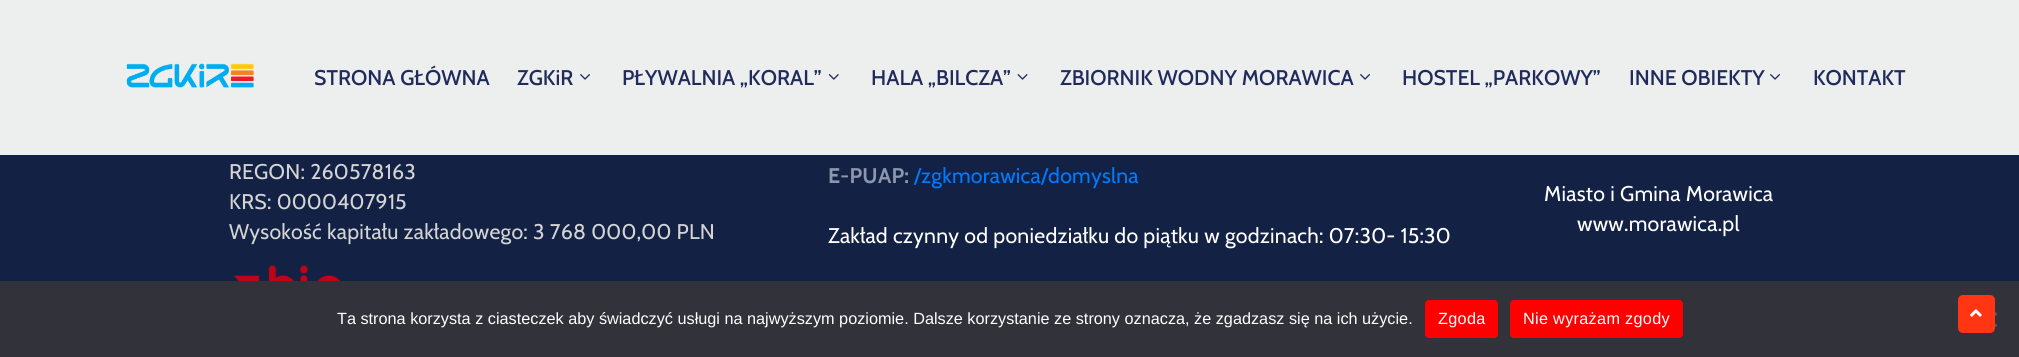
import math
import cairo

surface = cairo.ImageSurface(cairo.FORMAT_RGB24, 2019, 357)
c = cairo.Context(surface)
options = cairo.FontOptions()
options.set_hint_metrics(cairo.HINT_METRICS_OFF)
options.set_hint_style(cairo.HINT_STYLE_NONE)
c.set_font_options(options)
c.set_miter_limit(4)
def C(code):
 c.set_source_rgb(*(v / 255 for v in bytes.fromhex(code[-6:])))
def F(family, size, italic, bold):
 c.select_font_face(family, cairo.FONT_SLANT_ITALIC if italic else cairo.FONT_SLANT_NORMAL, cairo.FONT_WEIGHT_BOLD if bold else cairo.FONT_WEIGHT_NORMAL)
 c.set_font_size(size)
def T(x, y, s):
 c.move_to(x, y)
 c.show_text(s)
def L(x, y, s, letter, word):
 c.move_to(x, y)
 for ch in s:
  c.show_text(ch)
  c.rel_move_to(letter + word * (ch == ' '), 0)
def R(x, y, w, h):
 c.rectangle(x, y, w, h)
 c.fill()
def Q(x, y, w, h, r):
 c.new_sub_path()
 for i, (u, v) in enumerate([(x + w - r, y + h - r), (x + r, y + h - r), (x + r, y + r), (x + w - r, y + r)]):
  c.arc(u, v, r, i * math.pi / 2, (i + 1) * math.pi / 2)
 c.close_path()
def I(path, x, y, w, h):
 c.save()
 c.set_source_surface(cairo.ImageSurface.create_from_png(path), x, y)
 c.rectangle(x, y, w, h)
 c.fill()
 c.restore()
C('132244')
c.paint()
C('edeeee')
R(0,0,2019,155)
I('1.png',126,63,128,25)
F('Cabin Medium',21.25,0,0)
C('202b5d')
T(314,85,'STRONA GŁÓWNA')
T(517,85,'ZGKiR')
I('2.png',580,74,10,6)
T(622,85,'PŁYWALNIA „KORAL”')
I('3.png',828,74,11,6)
T(871,85,'HALA „BILCZA”')
I('4.png',1017,74,11,6)
T(1060,85,'ZBIORNIK WODNY MORAWICA')
I('2.png',1360,74,10,6)
T(1402,85,'HOSTEL „PARKOWY”')
T(1629,85,'INNE OBIEKTY')
I('2.png',1770,74,10,6)
T(1813,85,'KONTAKT')
F('Cabin',21.25,0,0)
C('d4d4d4')
L(229,179,'REGON: 260578163',.25,0)
L(229,209,'KRS: 0000407915',.25,0)
L(229,239,'Wysokość kapitału zakładowego: 3 768 000,00 PLN',.25,0)
I('5.png',233,265,108,16)
F('Cabin',21.25,0,1)
C('8c96ac')
L(828,183,'E-PUAP:',.25,0)
F('Cabin',21.25,0,0)
C('007bff')
L(914,183,'/zgkmorawica/domyslna',.25,0)
C('ffffff')
L(828,243,'Zakład czynny od poniedziałku do piątku w godzinach: 07:30- 15:30',.25,0)
L(1544,201,'Miasto i Gmina Morawica',.25,0)
L(1577,231,'www.morawica.pl',.25,0)
C('32323a')
R(0,281,2019,76)
F('Liberation Sans',16.25,0,0)
C('ffffff')
T(337,324,'Ta strona korzysta z ciasteczek aby świadczyć usługi na najwyższym poziomie. Dalsze korzystanie ze strony oznacza, że zgadzasz się na ich użycie.')
C('ff0000')
Q(1425,300,73,38,4)
c.fill()
C('ffffff')
L(1438,324,'Zgoda',.3,0)
C('ff0000')
Q(1510,300,173,38,4)
c.fill()
C('ffffff')
L(1523,324,'Nie wyrażam zgody',.3,0)
C('59595d')
c.new_path()
c.move_to(1995.5,312)
c.line_to(1997.5,314)
c.line_to(1984.5,327)
c.line_to(1982.5,325.5)
c.close_path()
c.fill()
c.new_path()
c.move_to(1982.5,314)
c.line_to(1984.5,312)
c.line_to(1997.5,325.5)
c.line_to(1995.5,327)
c.close_path()
c.fill()
C('ff3514')
Q(1958,295,37,38,5)
c.fill()
I('6.png',1970,309,12,8)
surface.write_to_png('o.png')
